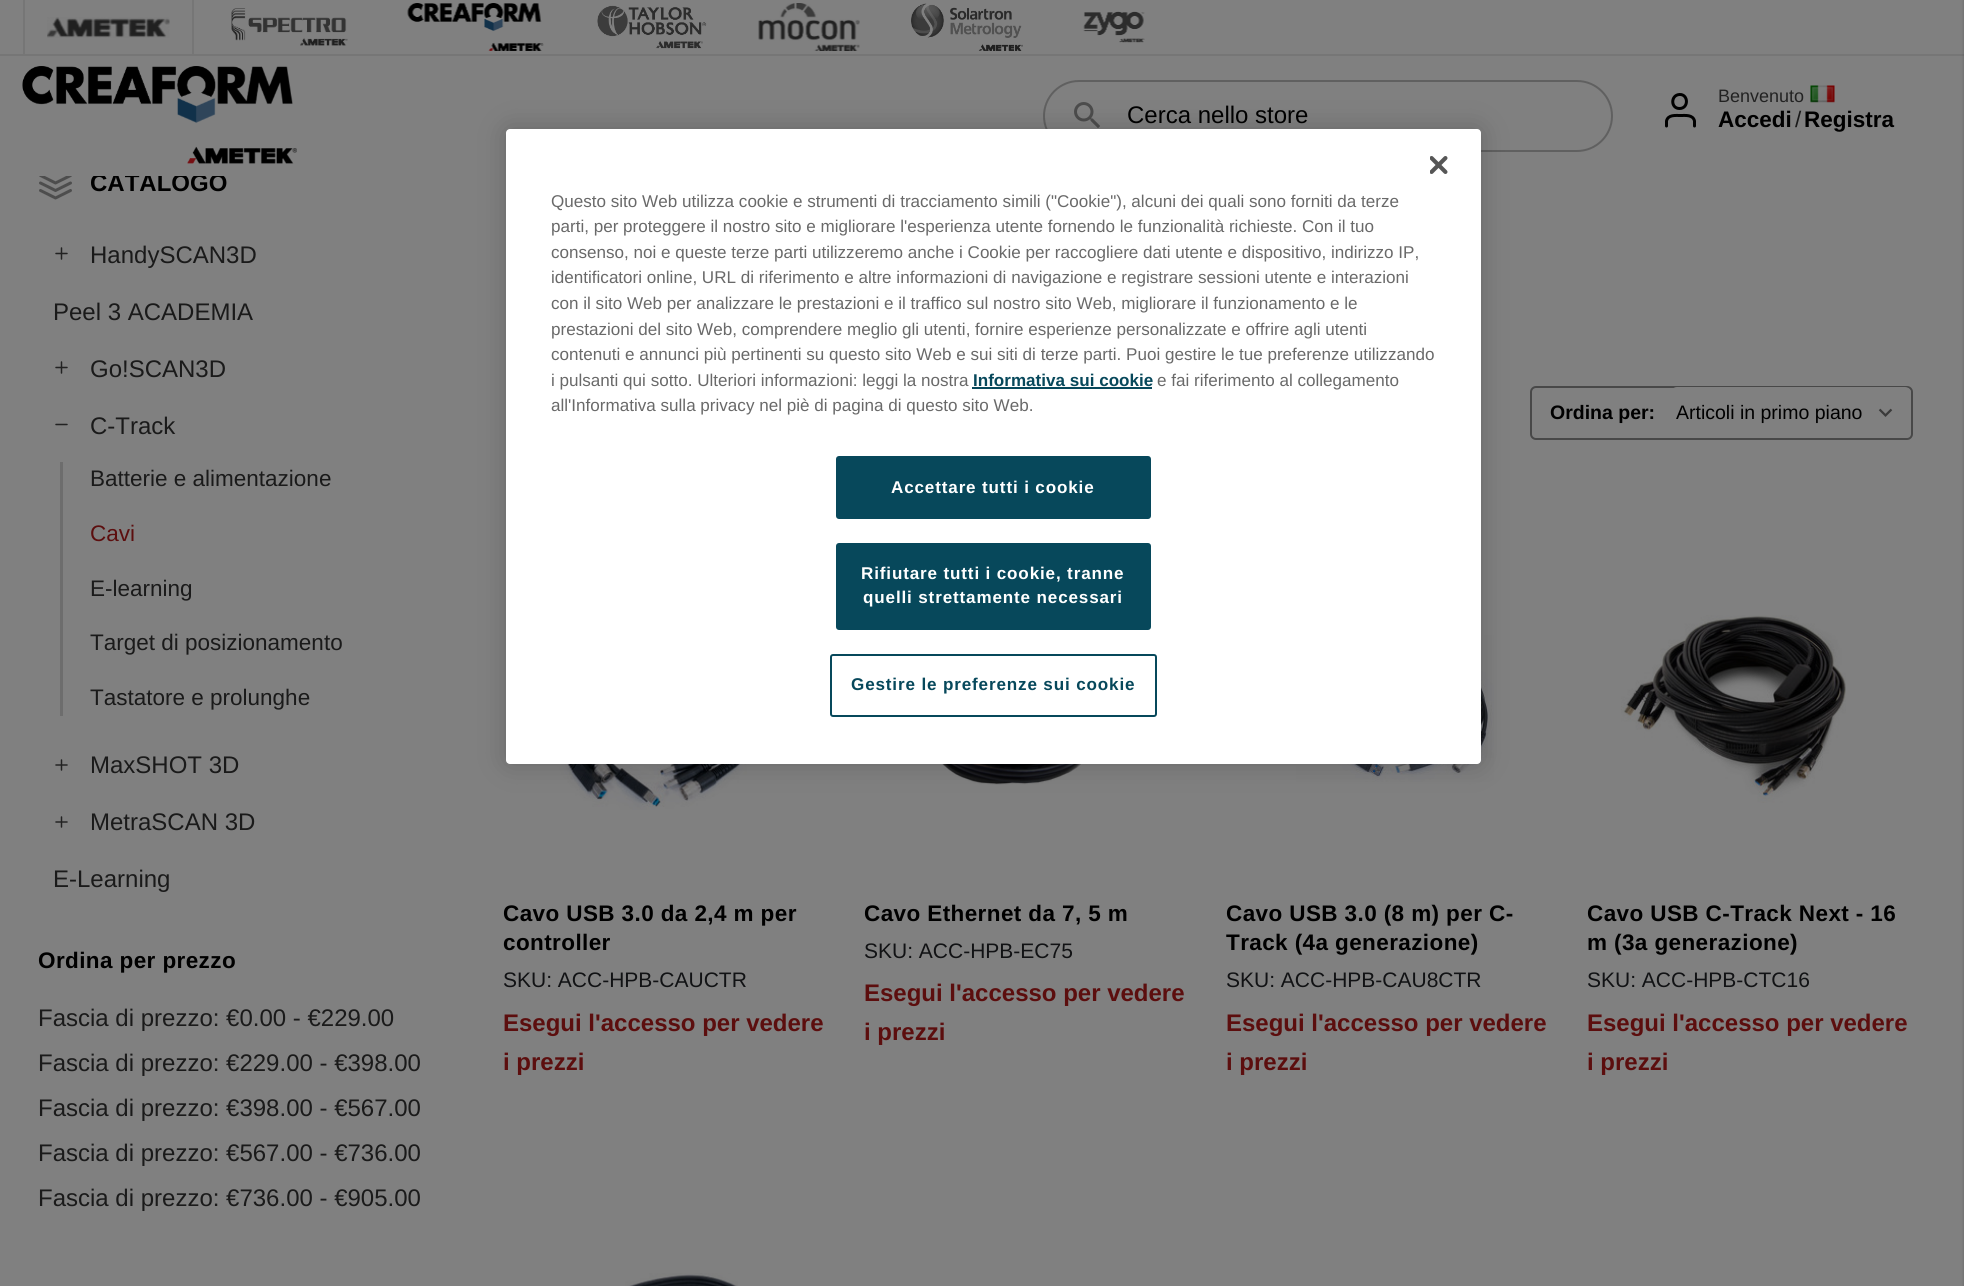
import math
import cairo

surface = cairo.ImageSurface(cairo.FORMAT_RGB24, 1964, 1286)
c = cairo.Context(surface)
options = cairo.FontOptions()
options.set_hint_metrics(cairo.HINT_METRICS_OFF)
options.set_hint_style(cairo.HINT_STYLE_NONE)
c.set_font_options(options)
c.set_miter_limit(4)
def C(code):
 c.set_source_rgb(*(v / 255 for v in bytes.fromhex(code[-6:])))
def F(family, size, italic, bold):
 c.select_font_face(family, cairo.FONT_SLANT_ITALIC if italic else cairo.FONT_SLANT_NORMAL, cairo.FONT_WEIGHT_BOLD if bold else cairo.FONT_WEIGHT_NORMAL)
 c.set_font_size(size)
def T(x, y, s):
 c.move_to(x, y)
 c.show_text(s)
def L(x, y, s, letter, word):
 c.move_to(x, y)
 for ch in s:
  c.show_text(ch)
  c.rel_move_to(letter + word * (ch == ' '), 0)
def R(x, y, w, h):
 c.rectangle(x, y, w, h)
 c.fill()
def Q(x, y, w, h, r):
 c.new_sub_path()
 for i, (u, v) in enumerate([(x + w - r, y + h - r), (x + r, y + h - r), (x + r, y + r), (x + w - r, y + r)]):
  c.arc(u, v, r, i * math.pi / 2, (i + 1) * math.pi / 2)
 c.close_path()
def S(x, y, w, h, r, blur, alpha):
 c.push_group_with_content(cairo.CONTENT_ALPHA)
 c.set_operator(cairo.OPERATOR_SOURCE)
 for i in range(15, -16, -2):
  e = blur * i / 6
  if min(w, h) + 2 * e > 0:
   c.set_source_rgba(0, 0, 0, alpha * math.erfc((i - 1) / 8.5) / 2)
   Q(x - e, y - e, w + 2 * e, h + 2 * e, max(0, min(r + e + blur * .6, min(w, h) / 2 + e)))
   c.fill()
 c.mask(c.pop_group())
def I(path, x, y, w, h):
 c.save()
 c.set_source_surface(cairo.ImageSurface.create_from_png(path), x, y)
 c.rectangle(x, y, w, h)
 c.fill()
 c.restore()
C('808080')
c.paint()
c.new_path()
c.move_to(55.5,168)
c.line_to(40.5,175.5)
c.line_to(55.5,183)
c.line_to(70.5,175.5)
c.close_path()
c.move_to(40.5,190.5)
c.line_to(55.5,198)
c.line_to(70.5,190.5)
c.move_to(40.5,183)
c.line_to(55.5,190.5)
c.line_to(70.5,183)
C('4d4d4d')
c.set_line_width(3)
c.set_line_cap(cairo.LINE_CAP_ROUND)
c.set_line_join(cairo.LINE_JOIN_ROUND)
c.stroke()
F('Liberation Sans',24,0,1)
C('000000')
T(90,191,'CATALOGO')
C('808080')
R(39,166,185,10)
C('767676')
R(0,54,1964,2)
R(192,0,2,54)
R(23,0,2,54)
I('1.png',47,17,123,21)
I('2.png',231,8,117,38)
I('3.png',407,3,137,48)
I('4.png',597,5,110,44)
I('5.png',758,3,102,48)
I('6.png',911,3,112,48)
I('7.png',1083,11,62,32)
I('8.png',22,66,275,98)
Q(1044,81,568,70,35)
C('606060')
c.set_line_width(2)
c.set_line_cap(cairo.LINE_CAP_BUTT)
c.set_line_join(cairo.LINE_JOIN_MITER)
c.stroke()
I('9.png',1074,102,26,26)
F('Liberation Sans',24,0,0)
C('000000')
T(1127,123,'Cerca nello store')
c.new_path()
c.move_to(1694.5,126)
c.line_to(1694.5,121)
c.curve_to(1693,114.5,1685.5,115.5,1680.5,115.5)
c.curve_to(1675.5,115.5,1668,114.5,1666.5,121)
c.line_to(1666.5,126)
c.move_to(1679.5,108.5)
c.curve_to(1689,108.5,1688.5,94,1679.5,94.5)
c.curve_to(1670.5,95,1670.5,108.5,1679.5,108.5)
c.close_path()
c.set_line_width(3)
c.set_line_cap(cairo.LINE_CAP_ROUND)
c.set_line_join(cairo.LINE_JOIN_ROUND)
c.stroke()
F('Liberation Sans',18,0,0)
C('222222')
T(1718,102,'Benvenuto')
I('10.png',1810,85,25,18)
F('Liberation Sans',22.5,0,1)
C('000000')
T(1718,127,'Accedi')
F('Liberation Sans',22.5,0,0)
C('1a1a1a')
T(1795,127,'/')
F('Liberation Sans',22.5,0,1)
C('000000')
T(1804,127,'Registra')
C('000000')
S(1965,0,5,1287,0,2,.4)
c.new_path()
c.move_to(61.5,248)
c.line_to(61.5,259)
c.move_to(56,253.5)
c.line_to(67,253.5)
C('222222')
c.set_line_width(1.5)
c.stroke()
F('Liberation Sans',24,0,0)
C('1a1a1a')
T(90,263,'HandySCAN3D')
T(53,320,'Peel 3 ACADEMIA')
c.new_path()
c.move_to(61.5,362)
c.line_to(61.5,373)
c.move_to(56,367.5)
c.line_to(67,367.5)
C('222222')
c.stroke()
C('1a1a1a')
T(90,377,'Go!SCAN3D')
c.new_path()
c.move_to(56,424.5)
c.line_to(67,424.5)
C('222222')
c.stroke()
C('1a1a1a')
T(90,434,'C-Track')
C('6d6d6d')
R(60,462,3,254)
F('Liberation Sans',22.5,0,0)
C('1a1a1a')
T(90,486,'Batterie e alimentazione')
C('5c0e0e')
T(90,541,'Cavi')
C('1a1a1a')
T(90,596,'E-learning')
T(90,650,'Target di posizionamento')
T(90,705,'Tastatore e prolunghe')
c.new_path()
c.move_to(61.5,760)
c.line_to(61.5,770)
c.move_to(56,765)
c.line_to(67,765)
C('222222')
c.stroke()
F('Liberation Sans',24,0,0)
C('1a1a1a')
T(90,773,'MaxSHOT 3D')
c.new_path()
c.move_to(61.5,817)
c.line_to(61.5,827)
c.move_to(56,822)
c.line_to(67,822)
C('222222')
c.stroke()
C('1a1a1a')
T(90,830,'MetraSCAN 3D')
T(53,887,'E-Learning')
F('Liberation Sans',22.5,0,1)
C('000000')
L(38,968,'Ordina per prezzo',.4,0)
F('Liberation Sans',24,0,0)
C('1a1a1a')
T(38,1026,'Fascia di prezzo: €0.00 - €229.00')
T(38,1071,'Fascia di prezzo: €229.00 - €398.00')
T(38,1116,'Fascia di prezzo: €398.00 - €567.00')
T(38,1161,'Fascia di prezzo: €567.00 - €736.00')
T(38,1206,'Fascia di prezzo: €736.00 - €905.00')
Q(1531,387,381,52,5)
C('484848')
c.set_line_width(2)
c.set_line_cap(cairo.LINE_CAP_BUTT)
c.set_line_join(cairo.LINE_JOIN_MITER)
c.stroke()
F('Liberation Sans',19.5,0,1)
C('000000')
T(1550,419,'Ordina per:')
C('808080')
Q(1671,387,240,51,6)
c.fill()
I('11.png',1878,408,15,9)
F('Liberation Sans',19.5,0,0)
C('000000')
T(1676,419,'Articoli in primo piano')
I('12.png',541,764,246,46)
F('Liberation Sans',22.5,0,1)
L(503,921,'Cavo USB 3.0 da 2,4 m per',.4,0)
L(503,950,'controller',.4,0)
F('Liberation Sans',21,0,0)
C('111214')
T(503,987,'SKU: ACC-HPB-CAUCTR')
F('Liberation Sans',24,0,1)
C('5c0e0e')
T(503,1031,'Esegui l\'accesso per vedere')
T(503,1070,'i prezzi')
I('13.png',942,764,140,21)
F('Liberation Sans',22.5,0,1)
C('000000')
L(864,921,'Cavo Ethernet da 7, 5 m',.4,0)
F('Liberation Sans',21,0,0)
C('111214')
T(864,958,'SKU: ACC-HPB-EC75')
F('Liberation Sans',24,0,1)
C('5c0e0e')
T(864,1001,'Esegui l\'accesso per vedere')
T(864,1040,'i prezzi')
I('14.png',1296,635,198,147)
F('Liberation Sans',22.5,0,1)
C('000000')
L(1226,921,'Cavo USB 3.0 (8 m) per C-',.4,0)
L(1226,950,'Track (4a generazione)',.4,0)
F('Liberation Sans',21,0,0)
C('111214')
T(1226,987,'SKU: ACC-HPB-CAU8CTR')
F('Liberation Sans',24,0,1)
C('5c0e0e')
T(1226,1031,'Esegui l\'accesso per vedere')
T(1226,1070,'i prezzi')
I('15.png',1621,615,225,188)
F('Liberation Sans',22.5,0,1)
C('000000')
L(1587,921,'Cavo USB C-Track Next - 16',.4,0)
L(1587,950,'m (3a generazione)',.4,0)
F('Liberation Sans',21,0,0)
C('111214')
T(1587,987,'SKU: ACC-HPB-CTC16')
F('Liberation Sans',24,0,1)
C('5c0e0e')
T(1587,1031,'Esegui l\'accesso per vedere')
T(1587,1070,'i prezzi')
I('16.png',625,1273,113,13)
C('000000')
S(506,129,975,635,4,13.5,.2)
C('ffffff')
Q(506,129,975,635,4)
c.fill()
I('17.png',1430,156,18,18)
F('Liberation Sans',17.07,0,0)
C('696969')
T(551,207,'Questo sito Web utilizza cookie e strumenti di tracciamento simili ("Cookie"), alcuni dei quali sono forniti da terze')
T(551,232,'parti, per proteggere il nostro sito e migliorare l\'esperienza utente fornendo le funzionalità richieste. Con il tuo')
T(551,258,'consenso, noi e queste terze parti utilizzeremo anche i Cookie per raccogliere dati utente e dispositivo, indirizzo IP,')
T(551,283,'identificatori online, URL di riferimento e altre informazioni di navigazione e registrare sessioni utente e interazioni')
T(551,309,'con il sito Web per analizzare le prestazioni e il traffico sul nostro sito Web, migliorare il funzionamento e le')
T(551,335,'prestazioni del sito Web, comprendere meglio gli utenti, fornire esperienze personalizzate e offrire agli utenti')
T(551,360,'contenuti e annunci più pertinenti su questo sito Web e sui siti di terze parti. Puoi gestire le tue preferenze utilizzando')
T(551,386,'i pulsanti qui sotto. Ulteriori informazioni: leggi la nostra')
F('Liberation Sans',17.07,0,1)
C('07485b')
T(973,386,'Informativa sui cookie')
R(972,387,180,2)
F('Liberation Sans',17.07,0,0)
C('696969')
T(1157,386,'e fai riferimento al collegamento')
T(551,411,'all\'Informativa sulla privacy nel piè di pagina di questo sito Web.')
C('07485b')
Q(837,457,313,61,2)
c.fill_preserve()
c.stroke()
F('Liberation Sans',17.07,0,1)
C('ffffff')
L(891,493,'Accettare tutti i cookie',.85,0)
C('07485b')
Q(837,544,313,85,2)
c.fill_preserve()
c.stroke()
C('ffffff')
L(861,579,'Rifiutare tutti i cookie, tranne',.85,0)
L(863,603,'quelli strettamente necessari',.85,0)
Q(831,655,325,61,2)
C('07485b')
c.stroke()
L(851,690,'Gestire le preferenze sui cookie',.85,0)
surface.write_to_png('o.png')
